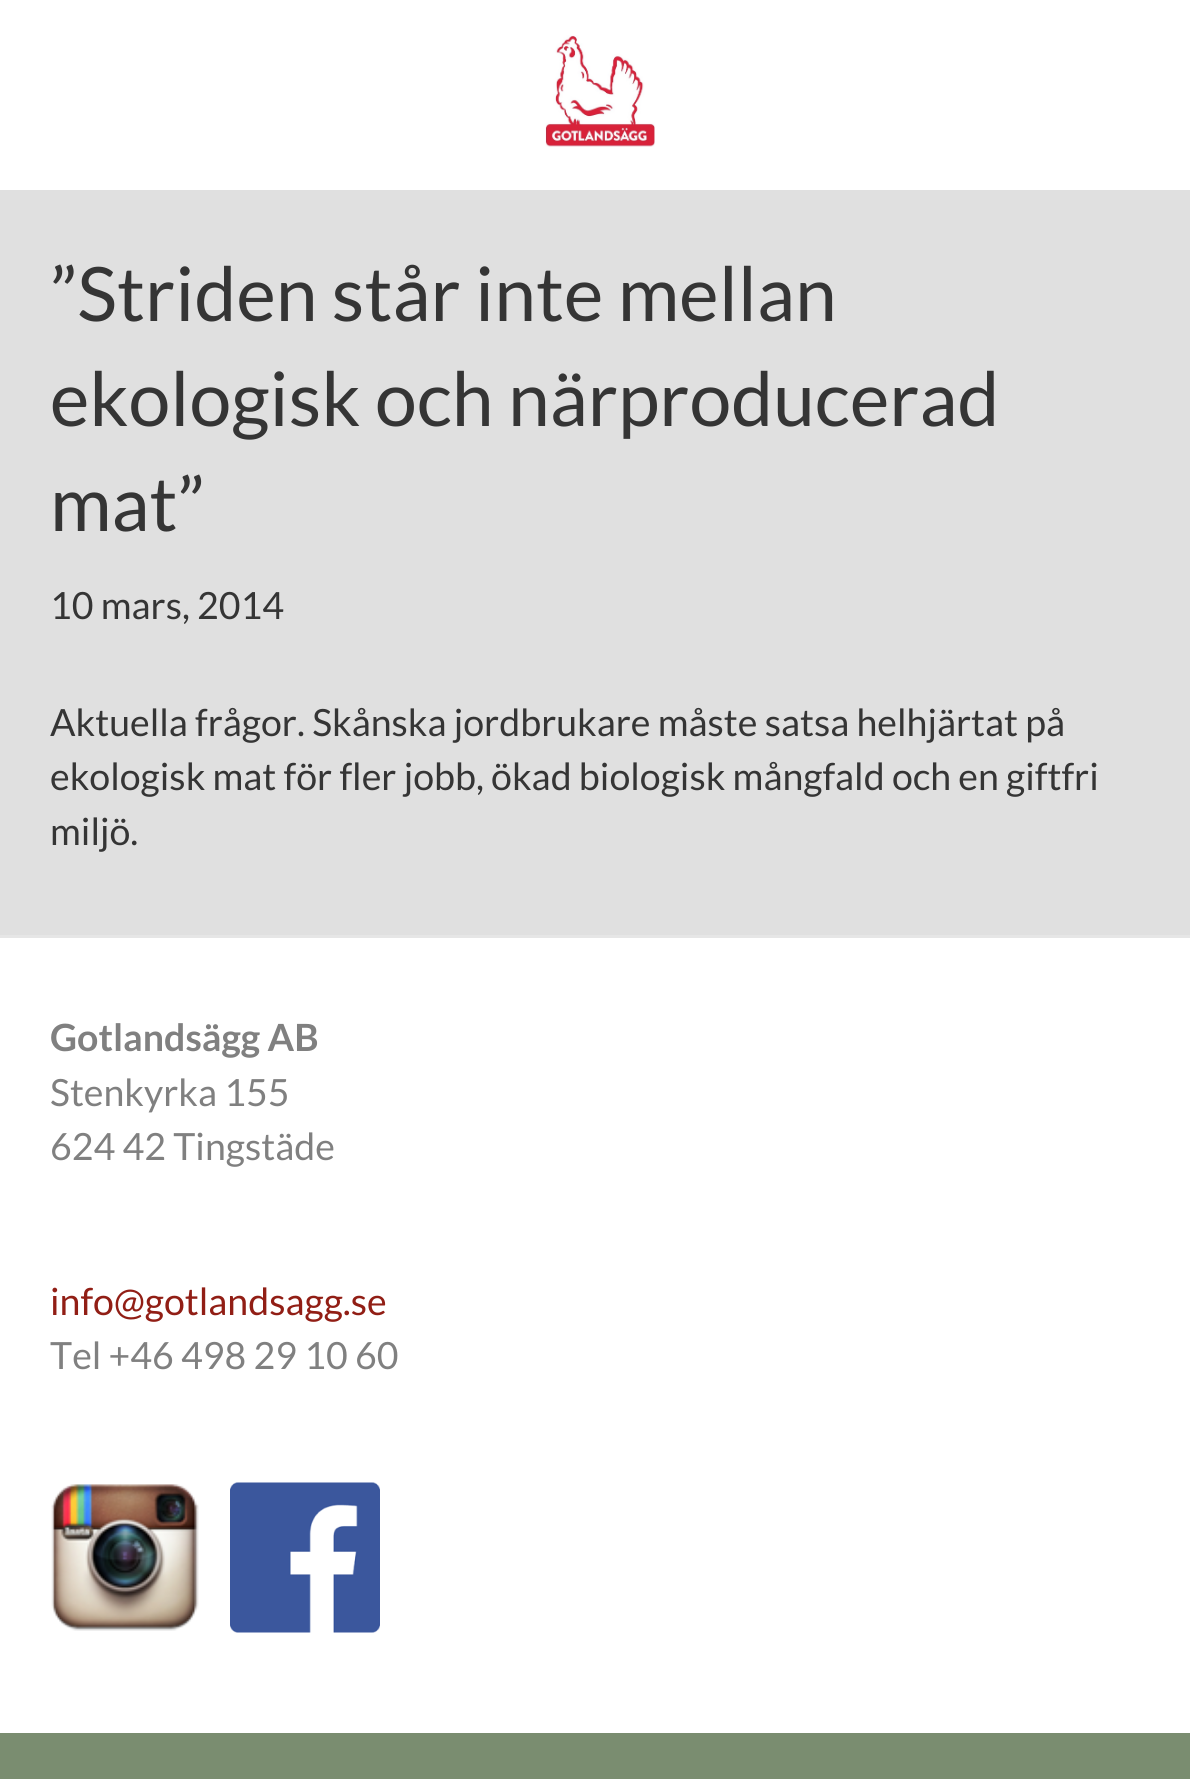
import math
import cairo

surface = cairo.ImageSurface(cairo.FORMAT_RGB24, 1190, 1779)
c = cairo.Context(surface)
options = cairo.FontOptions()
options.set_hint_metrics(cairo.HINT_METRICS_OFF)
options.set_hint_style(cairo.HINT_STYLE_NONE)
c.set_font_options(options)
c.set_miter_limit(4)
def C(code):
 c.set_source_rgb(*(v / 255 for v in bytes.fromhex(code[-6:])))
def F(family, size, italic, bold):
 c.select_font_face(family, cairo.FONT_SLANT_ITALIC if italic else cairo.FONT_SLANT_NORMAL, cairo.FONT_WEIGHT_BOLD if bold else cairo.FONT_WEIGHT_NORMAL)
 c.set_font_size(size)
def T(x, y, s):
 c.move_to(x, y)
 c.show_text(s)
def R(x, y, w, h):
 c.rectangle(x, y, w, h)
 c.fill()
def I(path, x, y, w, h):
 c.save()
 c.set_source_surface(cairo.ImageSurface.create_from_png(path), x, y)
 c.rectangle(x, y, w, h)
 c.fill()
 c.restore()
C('7a8d70')
c.paint()
C('ffffff')
R(0,0,1190,190)
I('1.png',545,35,110,112)
C('e0e0e0')
R(0,190,1190,745)
F('Lato',75,0,0)
C('353535')
T(50,321,'”Striden står inte mellan')
T(50,426,'ekologisk och närproducerad')
T(50,531,'mat”')
F('Lato',37.5,0,0)
T(50,619,'10 mars, 2014')
T(50,736,'Aktuella frågor. Skånska jordbrukare måste satsa helhjärtat på')
T(50,790,'ekologisk mat för fler jobb, ökad biologisk mångfald och en giftfri')
T(50,845,'miljö.')
C('ffffff')
R(0,938,1190,795)
C('e6e6e6')
R(0,935,1190,3)
F('Lato',37.5,0,1)
C('808080')
T(50,1051,'Gotlandsägg AB')
F('Lato',37.5,0,0)
T(50,1106,'Stenkyrka 155')
T(50,1160,'624 42 Tingstäde')
C('911e15')
T(50,1315,'info@gotlandsagg.se')
C('808080')
T(50,1369,'Tel +46 498 29 10 60')
I('2.png',51,1484,148,147)
I('3.png',230,1482,150,151)
surface.write_to_png('o.png')
